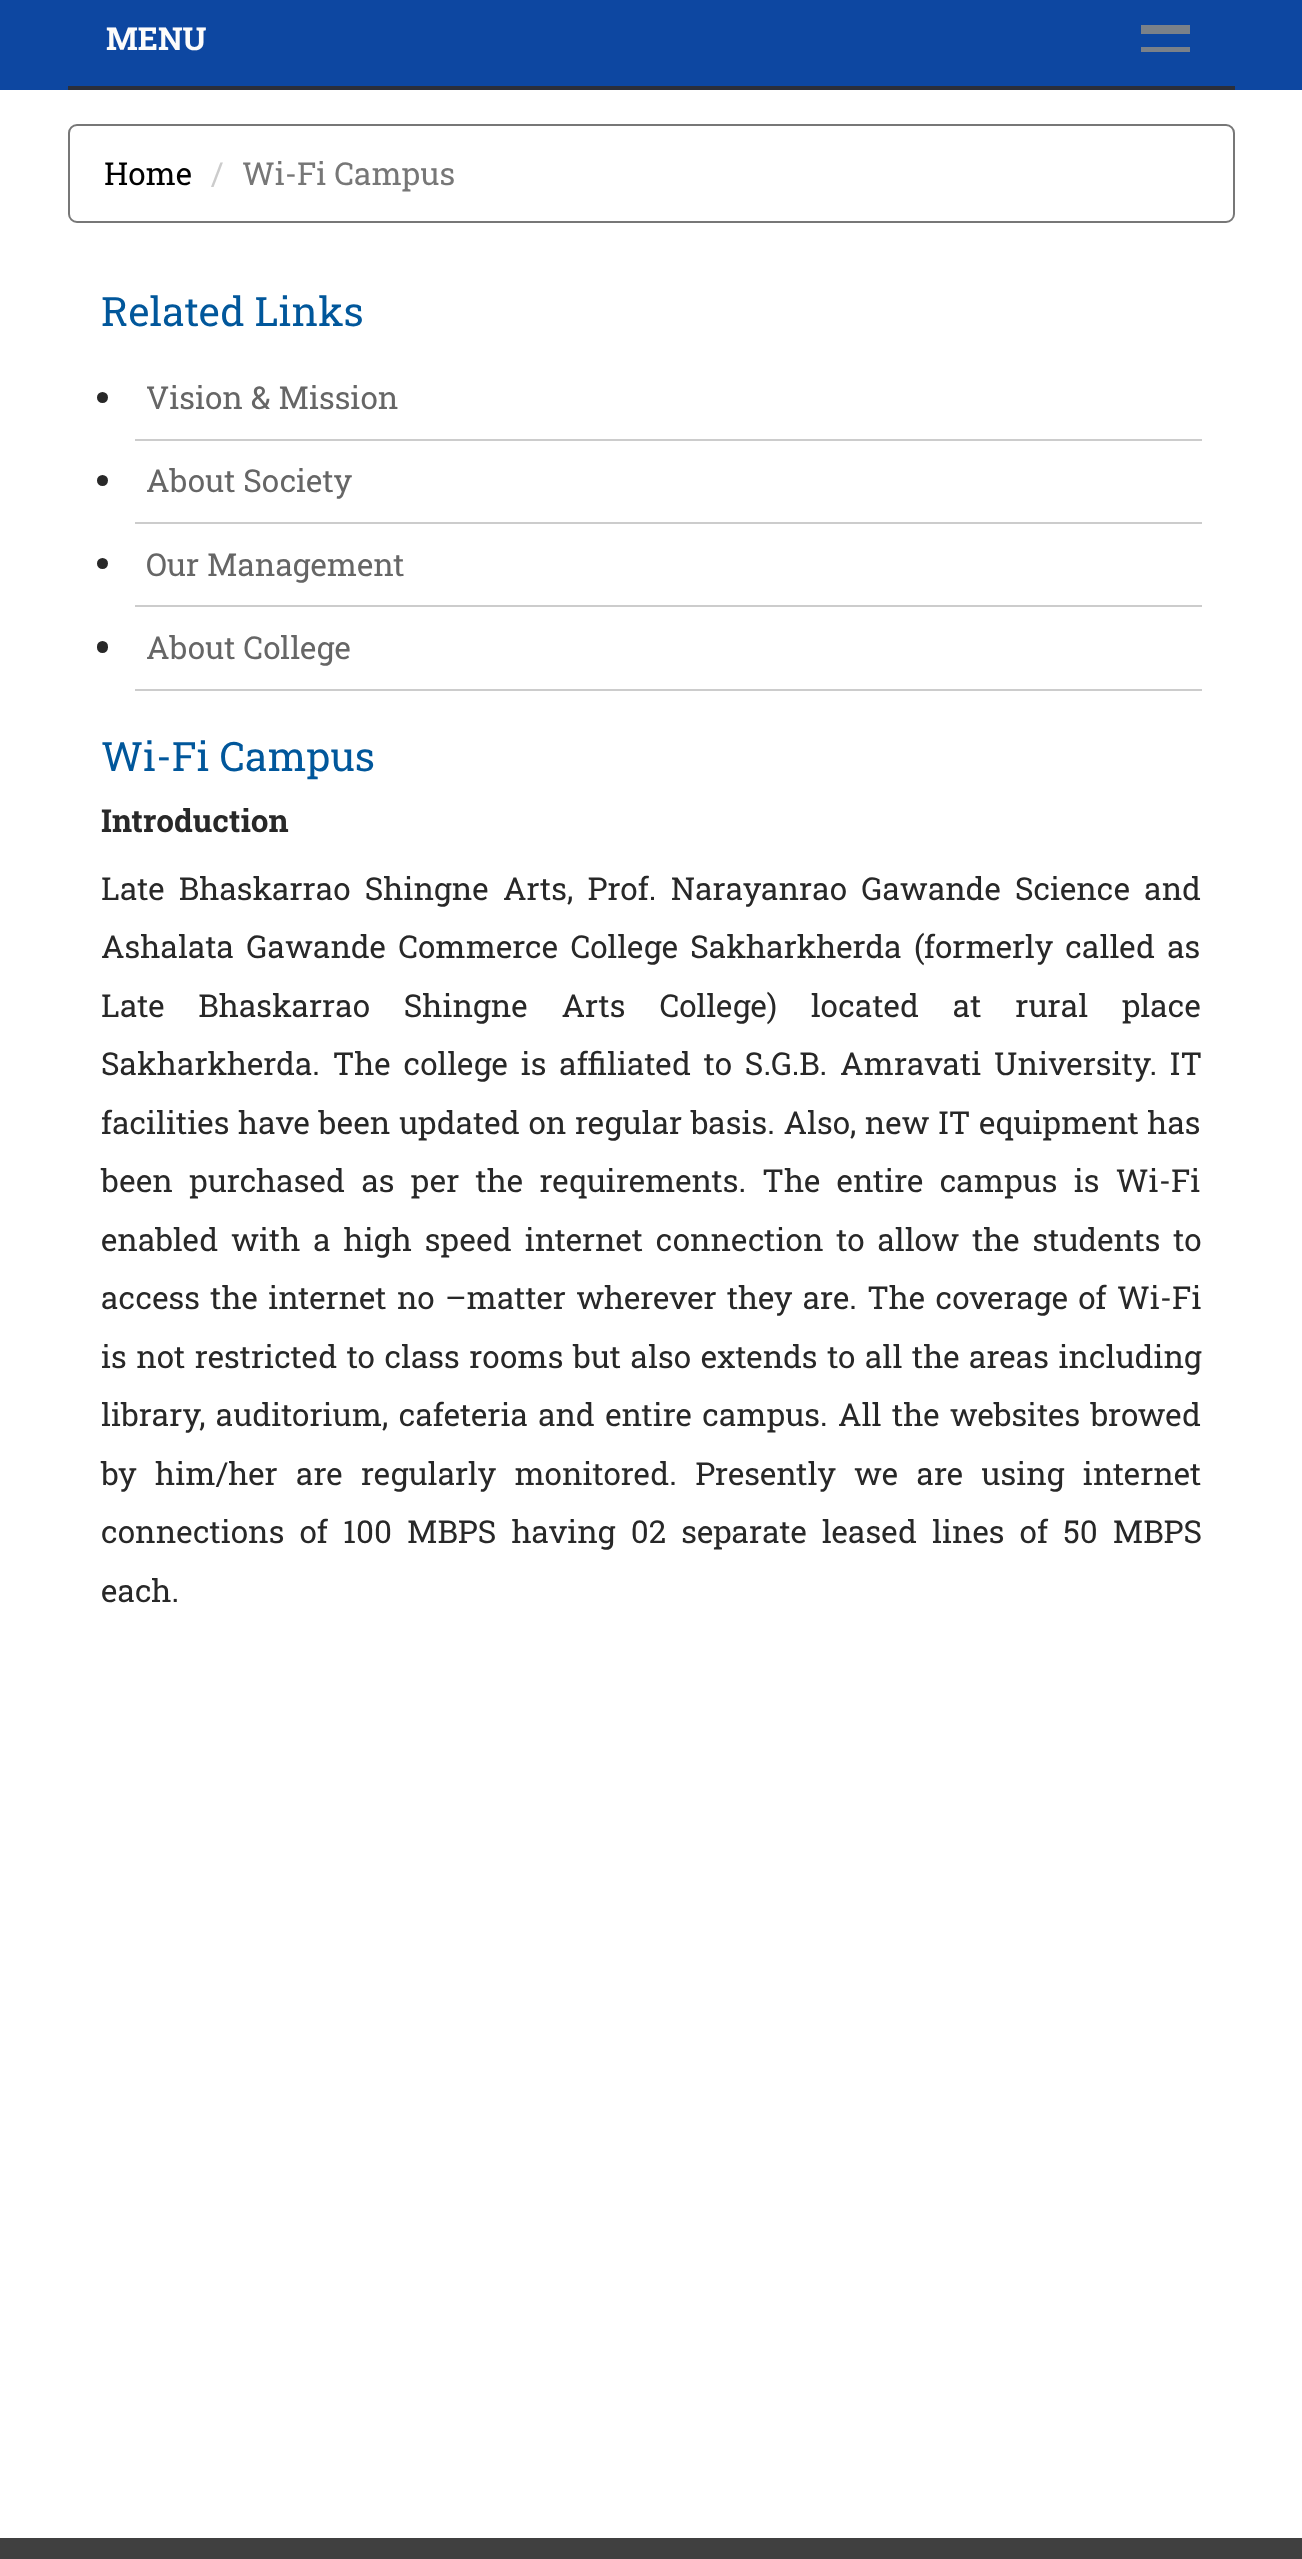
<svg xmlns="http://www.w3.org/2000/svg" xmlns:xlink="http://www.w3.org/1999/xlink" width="1302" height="2559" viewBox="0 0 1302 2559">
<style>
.cls-1{font:bold 31.5px Roboto Slab;fill:#fdfcfb}
.cls-2{font:31.5px Roboto Slab;fill:#000000}
.cls-3{font:31.5px Roboto Slab;fill:#cccccc}
.cls-4{font:31.5px Roboto Slab;fill:#777777}
.cls-5{font:40.5px Roboto Slab;fill:#01579b}
.cls-6{font:31.5px Roboto Slab;fill:#666666}
.cls-7{font:bold 31.5px Roboto Slab;fill:#282828}
.cls-8{font:31.5px Roboto Slab;fill:#282828}
</style>
<rect width="100%" height="100%" fill="#ffffff"/>
<rect fill="#0d47a1" x="0" y="0" width="1302" height="90"/>
<rect fill="#2b2f3a" x="68" y="86" width="1167" height="4"/>
<rect fill="#7a8189" x="1141" y="25" width="49" height="9"/>
<rect fill="#7a8189" x="1141" y="47" width="49" height="5"/>
<rect fill="none" stroke="#777777" stroke-width="2" x="69" y="125" width="1165" height="97" rx="8"/>
<rect fill="#cccccc" x="135" y="439" width="1067" height="2"/>
<circle fill="#282828" cx="102.5" cy="397.5" r="5.5"/>
<rect fill="#cccccc" x="135" y="522" width="1067" height="2"/>
<circle fill="#282828" cx="102.5" cy="480.5" r="5.5"/>
<rect fill="#cccccc" x="135" y="605" width="1067" height="2"/>
<circle fill="#282828" cx="102.5" cy="563.5" r="5.5"/>
<rect fill="#cccccc" x="135" y="689" width="1067" height="2"/>
<rect fill="#282828" x="97" y="641" width="11" height="12" rx="5.5"/>
<rect fill="#404040" x="0" y="2538" width="1302" height="21"/>
<text class="cls-1" x="106" y="50">MENU</text>
<text class="cls-2" x="104" y="185">Home</text>
<text class="cls-3" x="211" y="185">/</text>
<text class="cls-4" x="242" y="185">Wi-Fi Campus</text>
<text class="cls-5" x="101" y="326">Related Links</text>
<text class="cls-6" x="146" y="409">Vision &amp; Mission</text>
<text class="cls-6" x="146" y="492">About Society</text>
<text class="cls-6" x="146" y="576">Our Management</text>
<text class="cls-6" x="146" y="659">About College</text>
<text class="cls-5" x="101" y="771">Wi-Fi Campus</text>
<text class="cls-7" x="101" y="832">Introduction</text>
<text class="cls-8"><tspan x="101" y="900" word-spacing="6.5">Late Bhaskarrao Shingne Arts, Prof. Narayanrao Gawande Science and</tspan><tspan x="101" y="958" word-spacing="4.5">Ashalata Gawande Commerce College Sakharkherda (formerly called as</tspan><tspan x="101" y="1017" word-spacing="26">Late Bhaskarrao Shingne Arts College) located at rural place</tspan><tspan x="101" y="1075" word-spacing="5">Sakharkherda. The college is affiliated to S.G.B. Amravati University. IT</tspan><tspan x="101" y="1134" word-spacing="0.75">facilities have been updated on regular basis. Also, new IT equipment has</tspan><tspan x="101" y="1192" word-spacing="8.5">been purchased as per the requirements. The entire campus is Wi-Fi</tspan><tspan x="101" y="1251" word-spacing="5">enabled with a high speed internet connection to allow the students to</tspan><tspan x="101" y="1309" word-spacing="2.5">access the internet no –matter wherever they are. The coverage of Wi-Fi</tspan><tspan x="101" y="1368" word-spacing="1.75">is not restricted to class rooms but also extends to all the areas including</tspan><tspan x="101" y="1426" word-spacing="2.5">library, auditorium, cafeteria and entire campus. All the websites browed</tspan><tspan x="101" y="1485" word-spacing="10.5">by him/her are regularly monitored. Presently we are using internet</tspan><tspan x="101" y="1543" word-spacing="7.25">connections of 100 MBPS having 02 separate leased lines of 50 MBPS</tspan><tspan x="101" y="1602">each.</tspan></text>
</svg>
